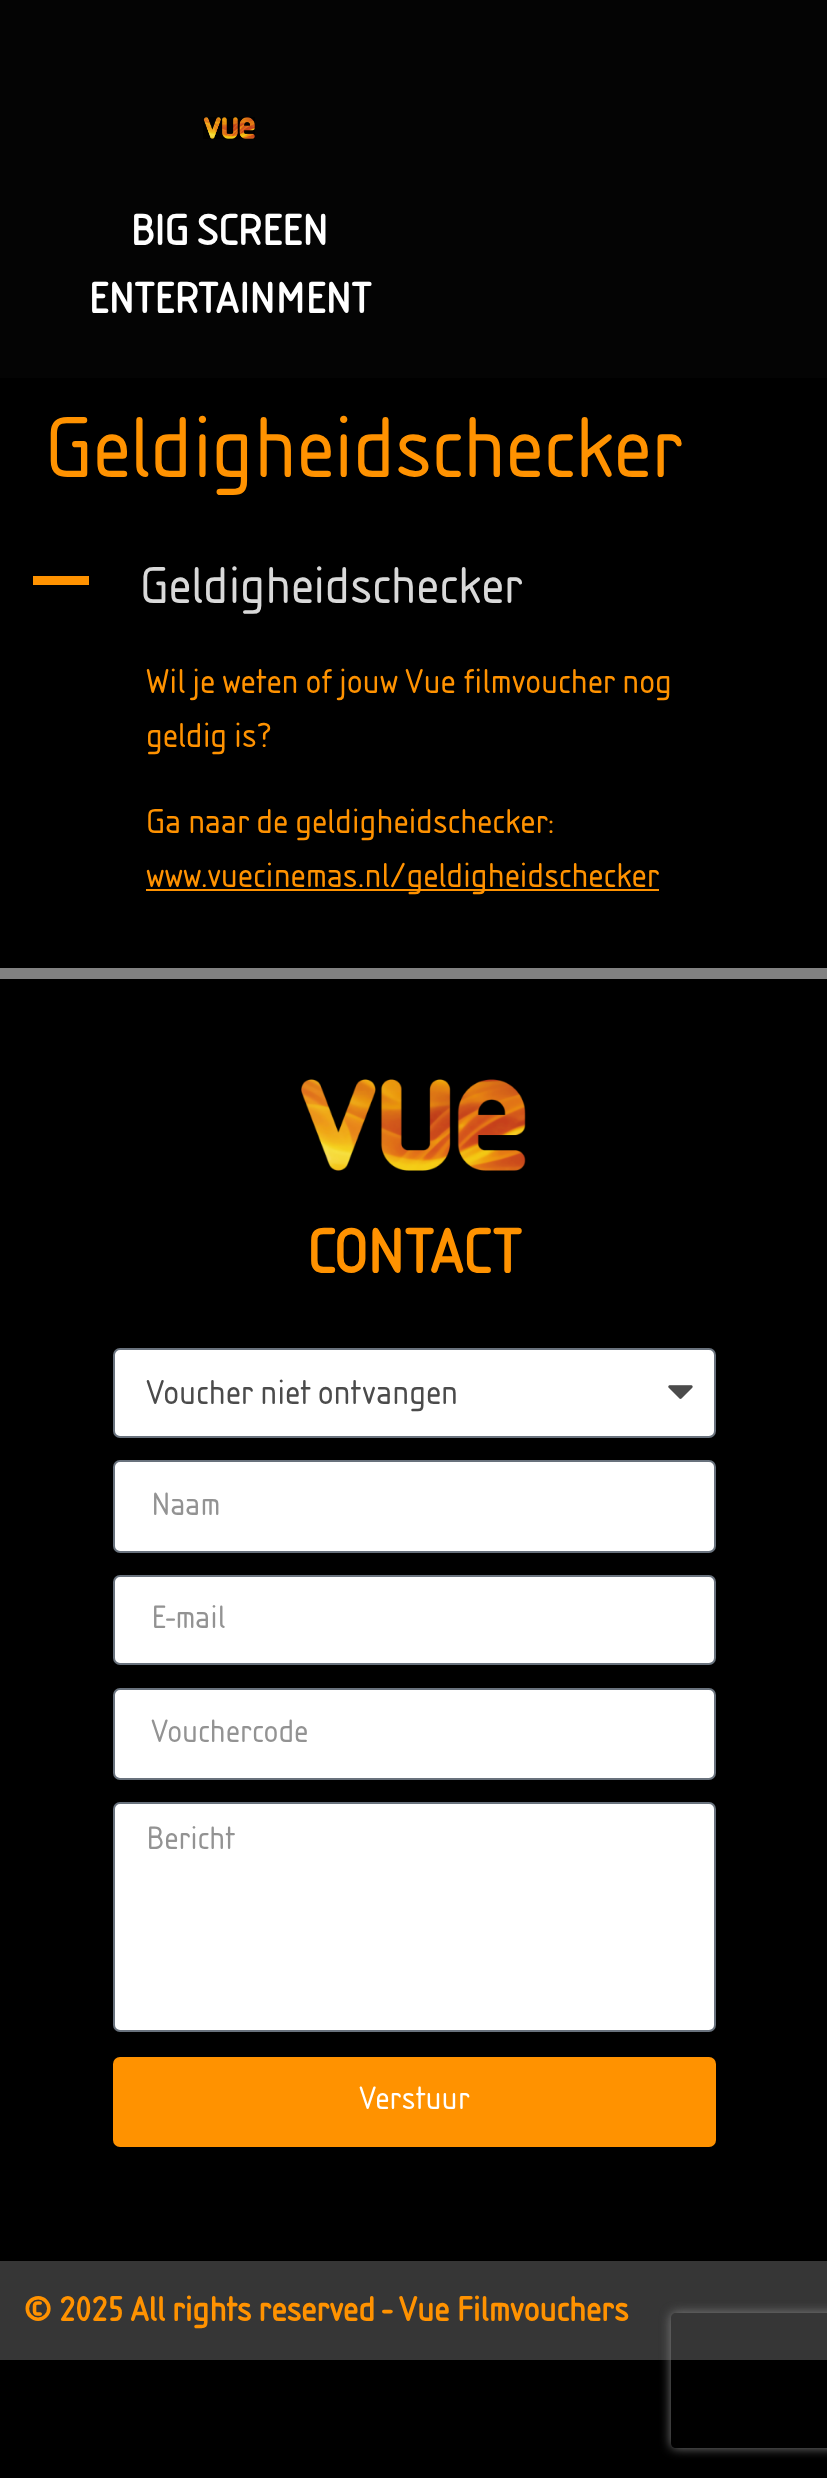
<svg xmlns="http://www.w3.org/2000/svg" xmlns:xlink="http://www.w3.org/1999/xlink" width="827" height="2478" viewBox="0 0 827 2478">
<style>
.cls-1{font:bold 45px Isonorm;fill:#ffffff}
.cls-2{font:90px Isonorm;fill:#ff9200}
.cls-3{font:54px Isonorm;fill:#d9d9d9}
.cls-4{font:36px Isonorm;fill:#ff9200}
.cls-5{font:bold 65px Isonorm;fill:#ff9200}
.cls-6{font:36px Isonorm;fill:#4b4b4b}
.cls-7{font:33.75px Isonorm;fill:#939393}
.cls-8{font:33.75px Isonorm;fill:#ffffff}
.cls-9{font:bold 36px Isonorm;fill:#ff9200}
</style>
<defs>
<clipPath id="clip1"><path d="M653 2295H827V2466H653ZM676 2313H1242C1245 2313 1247 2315 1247 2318V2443C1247 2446 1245 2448 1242 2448H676C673 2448 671 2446 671 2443V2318C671 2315 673 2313 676 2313Z" clip-rule="evenodd"/></clipPath>
</defs>
<rect width="100%" height="100%" fill="#000000"/>
<rect fill="#040404" x="0" y="0" width="827" height="378"/>
<image xlink:href="image0.png" x="203" y="117" width="52" height="22"/>
<rect fill="#ff9200" x="33" y="576" width="56" height="9"/>
<rect fill="#ff9200" x="146" y="889" width="513" height="2"/>
<rect fill="#818181" x="0" y="968" width="827" height="11"/>
<image xlink:href="image1.png" x="301" y="1079" width="225" height="92"/>
<rect fill="#ffffff" stroke="#69727d" stroke-width="2" x="114" y="1349" width="601" height="88" rx="6"/>
<image xlink:href="image2.png" x="668" y="1385" width="25" height="14"/>
<rect fill="#ffffff" stroke="#69727d" stroke-width="2" x="114" y="1461" width="601" height="91" rx="6"/>
<rect fill="#ffffff" stroke="#69727d" stroke-width="2" x="114" y="1576" width="601" height="88" rx="6"/>
<rect fill="#ffffff" stroke="#69727d" stroke-width="2" x="114" y="1689" width="601" height="90" rx="6"/>
<rect fill="#ffffff" stroke="#69727d" stroke-width="2" x="114" y="1803" width="601" height="228" rx="6"/>
<rect fill="#ff9200" x="113" y="2057" width="603" height="90" rx="7"/>
<rect fill="#363636" x="0" y="2261" width="827" height="99"/>
<g clip-path="url(#clip1)">
<rect fill="#808080" filter="blur(5.5px)" x="671" y="2313" width="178" height="135" rx="5"/>
</g>
<text class="cls-1" x="130" y="245">BIG SCREEN</text>
<text class="cls-1" x="88" y="313">ENTERTAINMENT</text>
<text class="cls-2" x="45" y="477">Geldigheidschecker</text>
<text class="cls-3" x="140" y="603">Geldigheidschecker</text>
<text class="cls-4"><tspan x="146" y="693">Wil je weten of jouw Vue filmvoucher nog</tspan><tspan x="146" y="747">geldig is?</tspan></text>
<text class="cls-4"><tspan x="146" y="833">Ga naar de geldigheidschecker:</tspan><tspan x="146" y="887">www.vuecinemas.nl/geldigheidschecker</tspan></text>
<text class="cls-5" x="307" y="1273">CONTACT</text>
<text class="cls-6" x="146" y="1404">Voucher niet ontvangen</text>
<text class="cls-7" x="151" y="1515">Naam</text>
<text class="cls-7" x="151" y="1628">E-mail</text>
<text class="cls-7" x="151" y="1742">Vouchercode</text>
<text class="cls-7" x="146" y="1849">Bericht</text>
<text class="cls-8" x="359" y="2109">Verstuur</text>
<text class="cls-9" x="23" y="2321">© 2025 All rights reserved - Vue Filmvouchers</text>
</svg>
